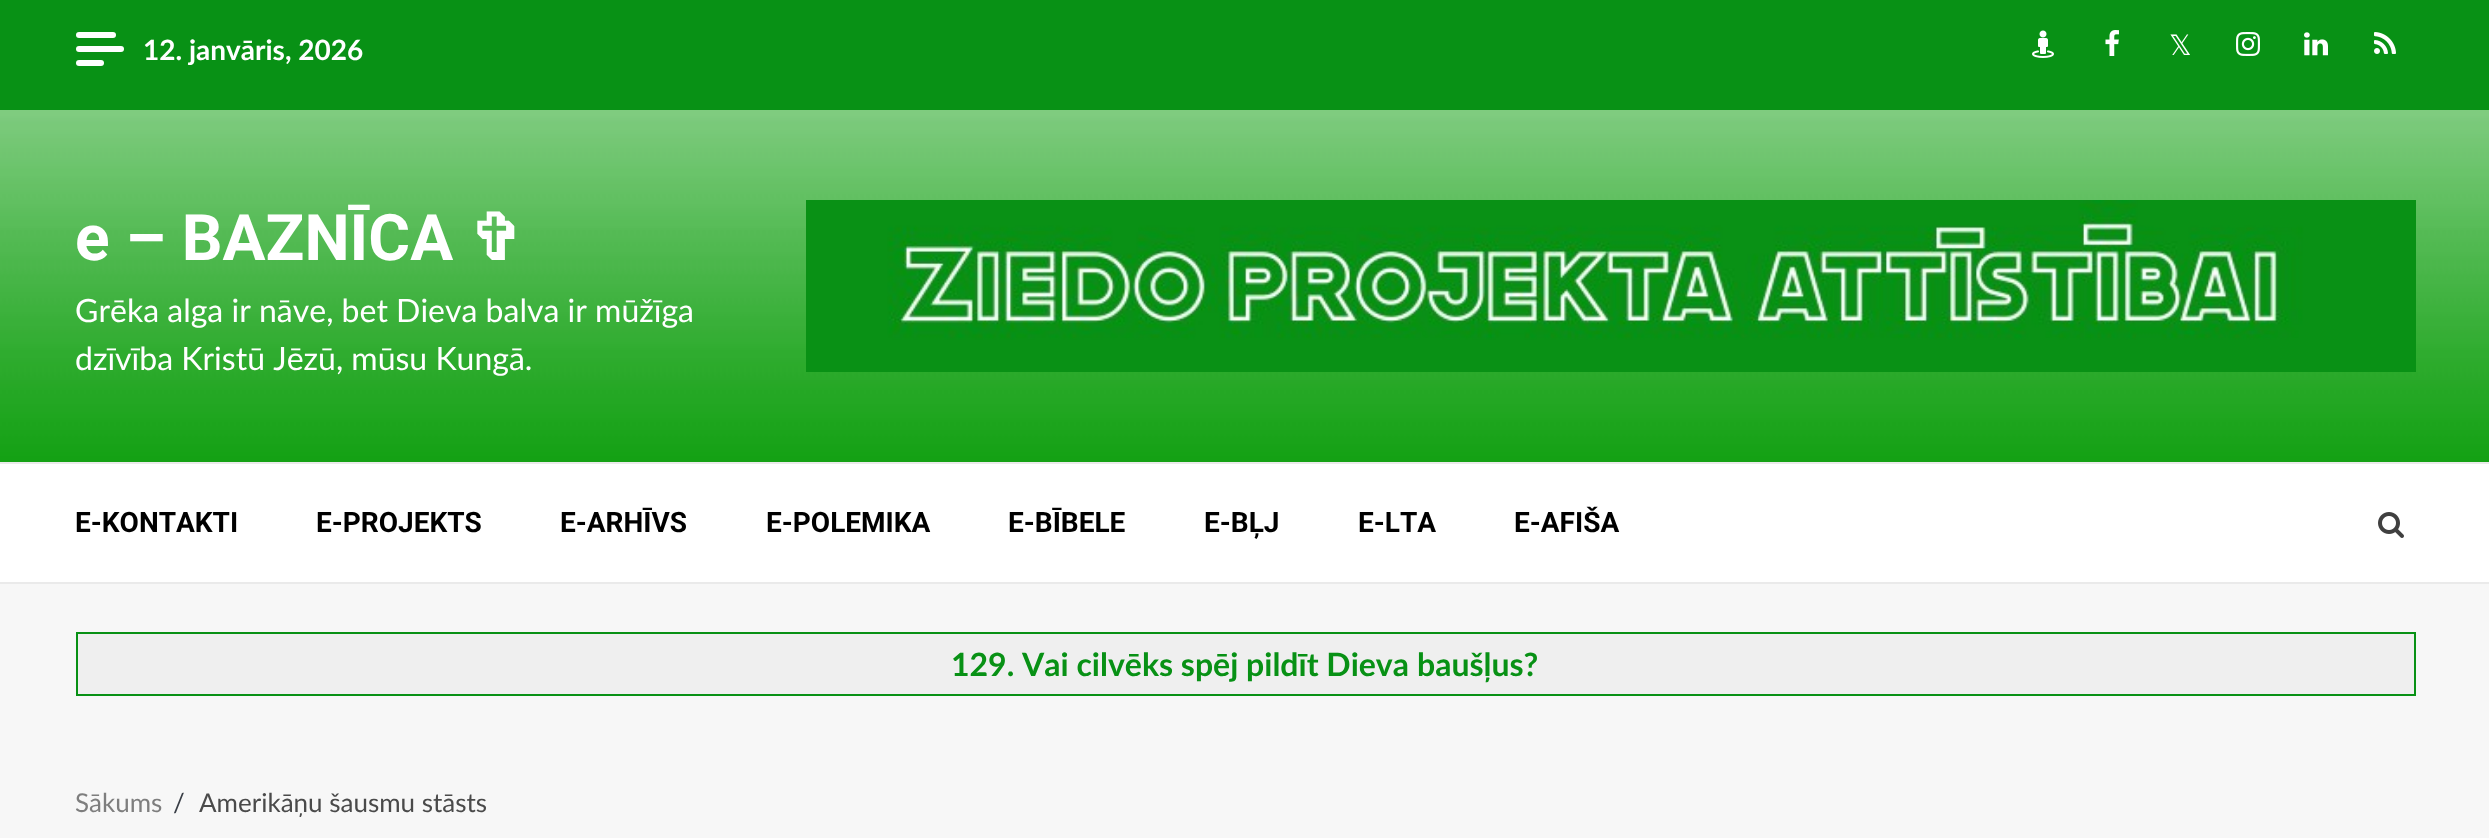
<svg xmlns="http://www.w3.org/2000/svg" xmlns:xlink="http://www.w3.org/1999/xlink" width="2489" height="838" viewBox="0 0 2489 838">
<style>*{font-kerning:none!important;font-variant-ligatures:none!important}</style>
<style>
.cls-1{font:bold 28px Lato;fill:#ffffff}
.cls-2{font:28px DejaVu Sans;fill:#ffffff}
.cls-3{font:bold 64px Roboto;fill:#ffffff}
.cls-4{font:bold 64px DejaVu Sans;fill:#ffffff}
.cls-5{font:32px Lato;fill:#ffffff}
.cls-6{font:bold 28px Roboto;fill:#000000}
.cls-7{font:bold 32px Lato;fill:#089115}
.cls-8{font:26px Lato;fill:#7e7e7e}
.cls-9{font:26px Lato;fill:#393e46}
.cls-10{font:26px Lato;fill:#4a4a4a}
</style>
<rect width="100%" height="100%" fill="#f7f7f7"/>
<rect fill="#ffffff" x="0" y="464" width="2489" height="118"/>
<rect fill="#089115" x="0" y="0" width="2489" height="110"/>
<rect fill="#ffffff" x="76" y="32" width="40" height="6" rx="3"/>
<rect fill="#ffffff" x="76" y="46" width="48" height="6" rx="3"/>
<rect fill="#ffffff" x="76" y="60" width="28" height="6" rx="3"/>
<image xlink:href="image0.png" x="2032" y="30" width="22" height="28"/>
<image xlink:href="image1.png" x="2105" y="30" width="14" height="26"/>
<image xlink:href="image2.png" x="2236" y="32" width="24" height="24"/>
<image xlink:href="image3.png" x="2304" y="32" width="24" height="24"/>
<image xlink:href="image4.png" x="2374" y="32" width="22" height="22"/>
<image xlink:href="image5.png" x="0" y="110" width="2489" height="352"/>
<image xlink:href="image6.png" x="806" y="200" width="1610" height="172"/>
<rect fill="#eaeaea" x="0" y="462" width="2489" height="2"/>
<rect fill="#eaeaea" x="0" y="582" width="2489" height="2"/>
<image xlink:href="image7.png" x="2378" y="512" width="26" height="26"/>
<rect fill="#efefef" stroke="#089115" stroke-width="2" x="77" y="633" width="2338" height="62"/>
<text class="cls-1" x="143" y="60">12. janvāris, 2026</text>
<text class="cls-2" x="2169" y="55">𝕏</text>
<text class="cls-3" x="75" y="260">e – BAZNĪCA</text>
<text class="cls-4" x="469" y="260">✞</text>
<text class="cls-5"><tspan x="75" y="322">Grēka alga ir nāve, bet Dieva balva ir mūžīga</tspan><tspan x="75" y="370">dzīvība Kristū Jēzū, mūsu Kungā.</tspan></text>
<text class="cls-6" x="75" y="532">E-KONTAKTI</text>
<text class="cls-6" x="316" y="532">E-PROJEKTS</text>
<text class="cls-6" x="560" y="532">E-ARHĪVS</text>
<text class="cls-6" x="766" y="532">E-POLEMIKA</text>
<text class="cls-6" x="1008" y="532">E-BĪBELE</text>
<text class="cls-6" x="1204" y="532">E-BĻJ</text>
<text class="cls-6" x="1358" y="532">E-LTA</text>
<text class="cls-6" x="1514" y="532">E-AFIŠA</text>
<text class="cls-7" x="951" y="676">129. Vai cilvēks spēj pildīt Dieva</text>
<text class="cls-7" x="1417" y="676">baušļus?</text>
<text class="cls-8" x="75" y="812">Sākums</text>
<text class="cls-9" x="173" y="812">/</text>
<text class="cls-10" x="199" y="812">Amerikāņu šausmu stāsts</text>
</svg>
